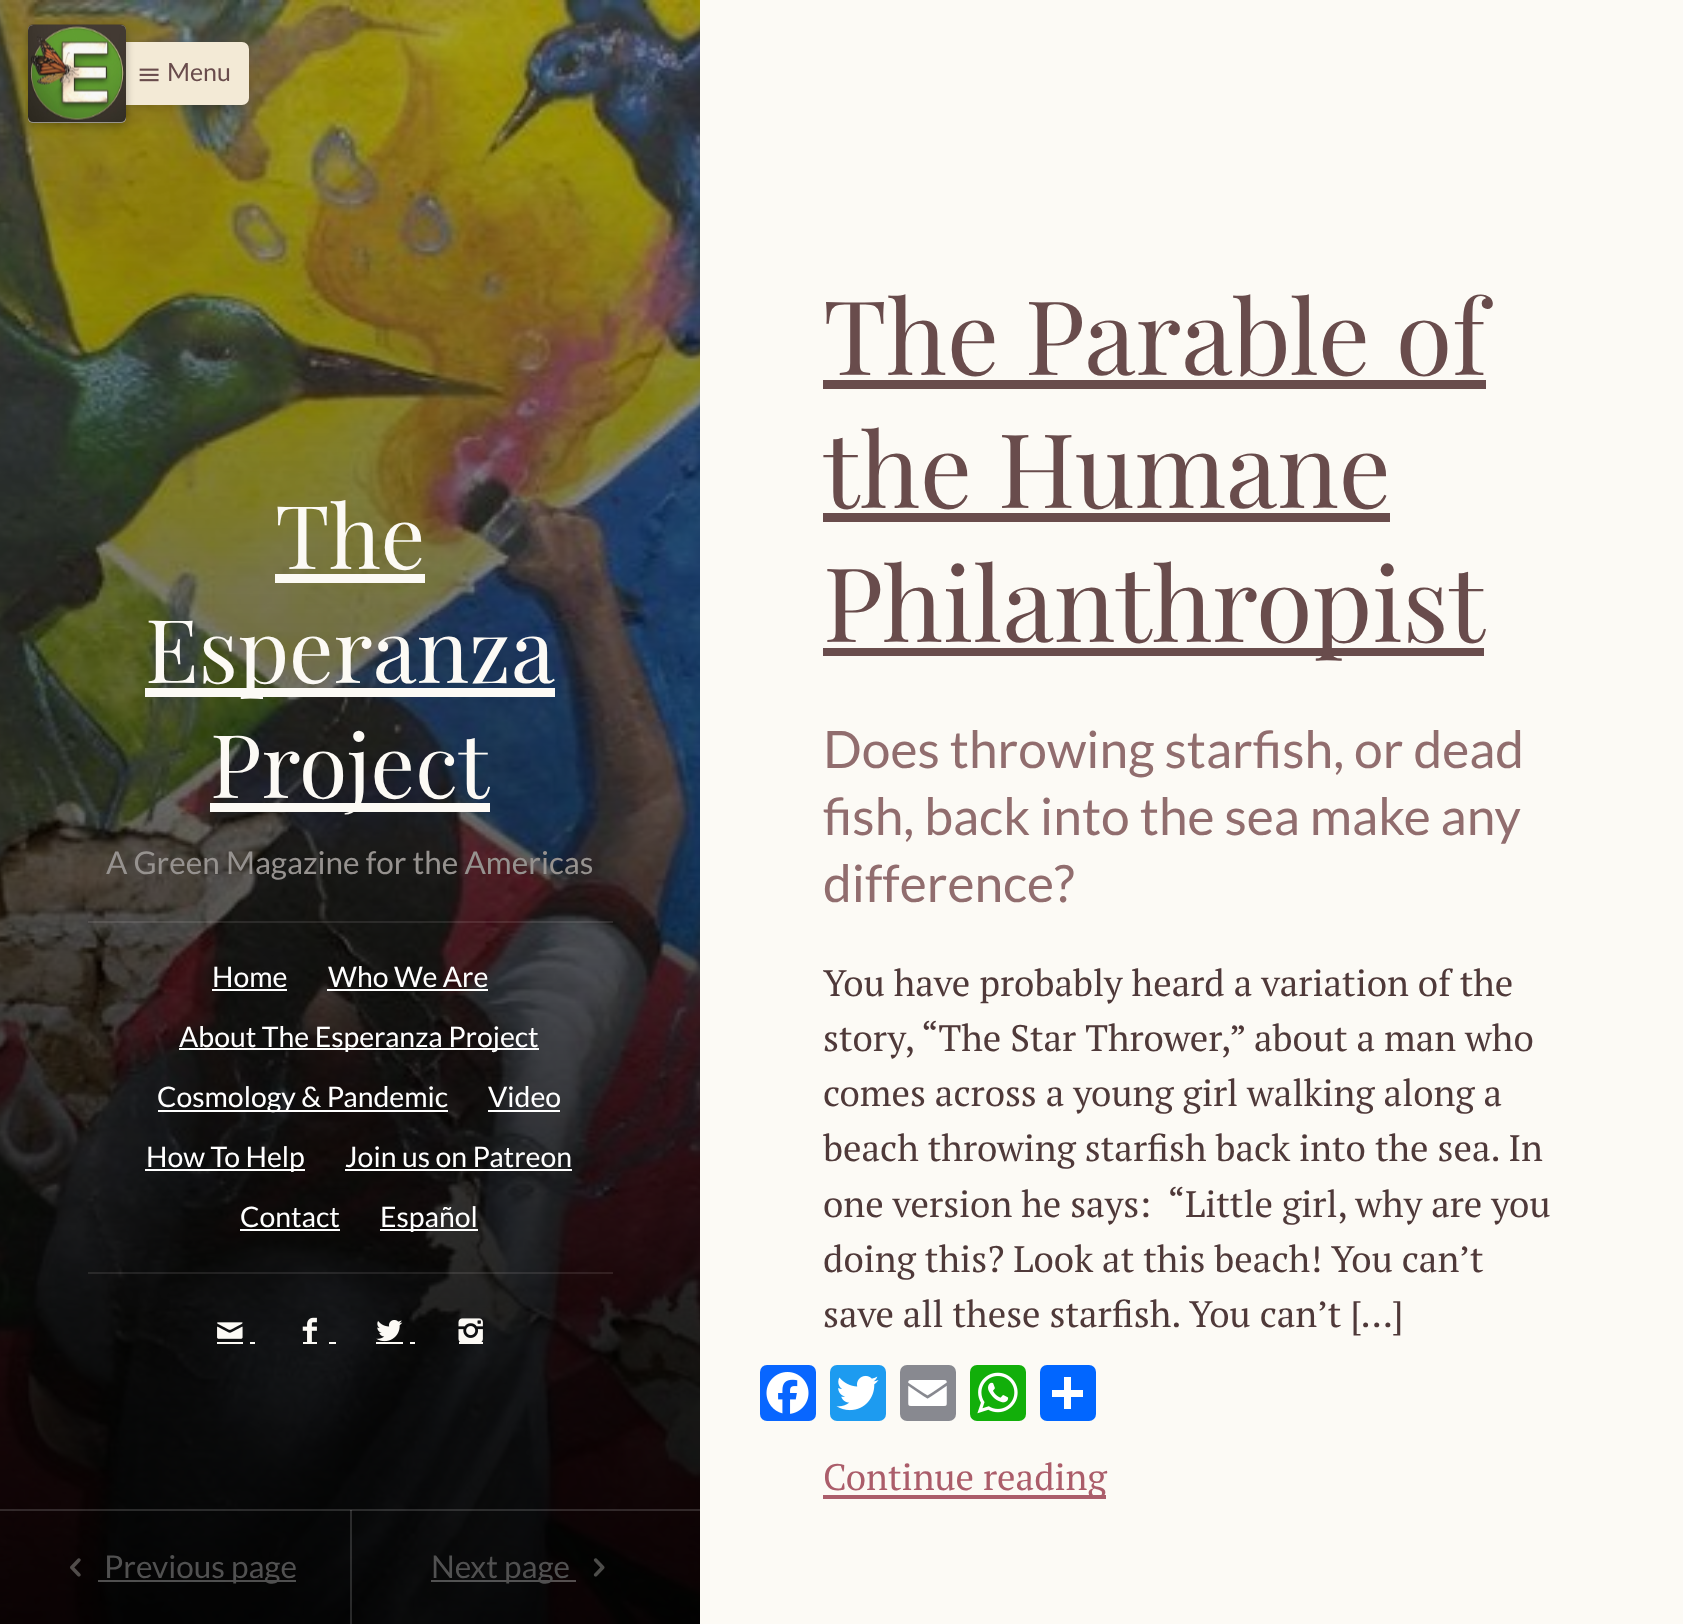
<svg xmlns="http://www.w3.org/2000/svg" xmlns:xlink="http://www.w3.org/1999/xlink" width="1683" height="1624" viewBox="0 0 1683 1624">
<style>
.cls-1{font:25px Lato;fill:#694c4c}
.cls-2{font:88px Playfair Display;fill:#fcfaf5}
.cls-3{font:31.5px Lato;fill:#96928f}
.cls-4{font:28.4px Lato;fill:#ffffff}
.cls-5{font:31.5px Lato;fill:#515151}
.cls-6{font:103px Playfair Display;fill:#694c4c}
.cls-7{font:51.5px Lato;fill:#916d6e}
.cls-8{font:36.75px PT Serif;fill:#4f3939}
.cls-9{font:36.75px PT Serif;fill:#ab5d6a}
</style>
<rect width="100%" height="100%" fill="#fcfaf5"/>
<image xlink:href="image2.png" x="0" y="0" width="700" height="1624"/>
<rect fill="#000000" fill-opacity="0.1" filter="blur(3.5px)" x="102" y="46" width="147" height="63" rx="7"/>
<rect fill="#f3ead6" x="102" y="42" width="147" height="63" rx="7"/>
<image xlink:href="image1.png" x="139" y="68" width="20" height="14"/>
<rect fill="#000000" fill-opacity="0.26" filter="blur(4.5px)" x="28" y="28" width="98" height="98" rx="5"/>
<rect fill="#fcfaf5" x="28" y="25" width="98" height="98" rx="5"/>
<image xlink:href="image0.png" x="28" y="24" width="98" height="99"/>
<rect fill="#fcfaf5" x="275" y="574" width="150" height="9"/>
<rect fill="#fcfaf5" x="145" y="688" width="410" height="9"/>
<rect fill="#fcfaf5" x="210" y="803" width="280" height="9"/>
<rect fill="#fcfaf5" fill-opacity="0.1" x="88" y="921" width="525" height="2"/>
<rect fill="#ffffff" x="212" y="989" width="75" height="2"/>
<rect fill="#ffffff" x="327" y="989" width="161" height="2"/>
<rect fill="#ffffff" x="179" y="1048" width="360" height="2"/>
<rect fill="#ffffff" x="158" y="1110" width="290" height="2"/>
<rect fill="#ffffff" x="488" y="1110" width="72" height="2"/>
<rect fill="#ffffff" x="145" y="1169" width="160" height="2"/>
<rect fill="#ffffff" x="345" y="1169" width="227" height="2"/>
<rect fill="#ffffff" x="240" y="1229" width="100" height="2"/>
<rect fill="#ffffff" x="380" y="1229" width="98" height="2"/>
<rect fill="#fcfaf5" fill-opacity="0.1" x="88" y="1272" width="525" height="2"/>
<rect fill="#fcfaf5" x="217" y="1342" width="26" height="2"/>
<image xlink:href="image3.png" x="217" y="1322" width="26" height="17"/>
<rect fill="#fcfaf5" x="250" y="1342" width="5" height="2"/>
<rect fill="#fcfaf5" x="303" y="1342" width="14" height="2"/>
<image xlink:href="image4.png" x="302" y="1317" width="15" height="25"/>
<rect fill="#fcfaf5" x="329" y="1342" width="7" height="2"/>
<rect fill="#fcfaf5" x="376" y="1342" width="27" height="2"/>
<image xlink:href="image5.png" x="376" y="1320" width="27" height="22"/>
<rect fill="#fcfaf5" x="410" y="1342" width="5" height="2"/>
<rect fill="#fcfaf5" x="459" y="1342" width="24" height="2"/>
<image xlink:href="image6.png" x="458" y="1318" width="25" height="24"/>
<rect fill="#ffffff" fill-opacity="0.15" x="0" y="1509" width="700" height="2"/>
<image xlink:href="image7.png" x="70" y="1558" width="11" height="19"/>
<rect fill="#ffffff" fill-opacity="0.3" x="98" y="1580" width="198" height="2"/>
<rect fill="#ffffff" fill-opacity="0.15" x="350" y="1510" width="2" height="114"/>
<rect fill="#ffffff" fill-opacity="0.3" x="431" y="1580" width="145" height="2"/>
<image xlink:href="image8.png" x="593" y="1558" width="12" height="19"/>
<rect fill="#694c4c" x="823" y="380" width="663" height="9"/>
<rect fill="#694c4c" x="823" y="513" width="567" height="9"/>
<rect fill="#694c4c" x="823" y="648" width="661" height="8"/>
<rect fill="#0866ff" x="760" y="1365" width="56" height="56" rx="7"/>
<image xlink:href="image9.png" x="766" y="1372" width="43" height="42"/>
<rect fill="#1d9bf0" x="830" y="1365" width="56" height="56" rx="7"/>
<image xlink:href="image10.png" x="836" y="1375" width="43" height="36"/>
<rect fill="#888990" x="900" y="1365" width="56" height="56" rx="7"/>
<image xlink:href="image11.png" x="908" y="1380" width="39" height="26"/>
<rect fill="#12af0a" x="970" y="1365" width="56" height="56" rx="7"/>
<image xlink:href="image12.png" x="977" y="1372" width="41" height="42"/>
<rect fill="#0166ff" x="1040" y="1365" width="56" height="56" rx="7"/>
<rect fill="#ffffff" x="1064" y="1377" width="7" height="32"/>
<rect fill="#ffffff" x="1052" y="1390" width="31" height="7"/>
<rect fill="#ab5d6a" x="823" y="1495" width="283" height="4"/>
<text class="cls-1" x="167" y="81">Menu</text>
<text class="cls-2" x="275" y="569">The</text>
<text class="cls-2" x="145" y="683">Esperanza</text>
<text class="cls-2" x="210" y="798">Project</text>
<text class="cls-3" x="106" y="874">A Green Magazine for the Americas</text>
<text class="cls-4" x="212" y="987">Home</text>
<text class="cls-4" x="328" y="987">Who We Are</text>
<text class="cls-4" x="179" y="1047">About The Esperanza Project</text>
<text class="cls-4" x="157" y="1107">Cosmology &amp; Pandemic</text>
<text class="cls-4" x="488" y="1107">Video</text>
<text class="cls-4" x="146" y="1167">How To Help</text>
<text class="cls-4" x="345" y="1167">Join us on Patreon</text>
<text class="cls-4" x="240" y="1227">Contact</text>
<text class="cls-4" x="380" y="1227">Español</text>
<text class="cls-5" x="104" y="1578">Previous page</text>
<text class="cls-5" x="431" y="1578">Next page</text>
<text class="cls-6"><tspan x="823" y="375">The Parable of</tspan><tspan x="823" y="508">the Humane</tspan><tspan x="823" y="642">Philanthropist</tspan></text>
<text class="cls-7"><tspan x="823" y="768">Does throwing starfish, or dead</tspan><tspan x="823" y="835">fish, back into the sea make any</tspan><tspan x="823" y="902">difference?</tspan></text>
<text class="cls-8" xml:space="preserve"><tspan x="823" y="996">You have probably heard a variation of the</tspan><tspan x="823" y="1051">story, “The Star Thrower,” about a man who</tspan><tspan x="823" y="1106">comes across a young girl walking along a</tspan><tspan x="823" y="1161">beach throwing starfish back into the sea. In</tspan><tspan x="823" y="1217">one version he says:  “Little girl, why are you</tspan><tspan x="823" y="1272">doing this? Look at this beach! You can’t</tspan><tspan x="823" y="1327">save all these starfish. You can’t […]</tspan></text>
<text class="cls-9" x="823" y="1490">Continue reading</text>
</svg>
